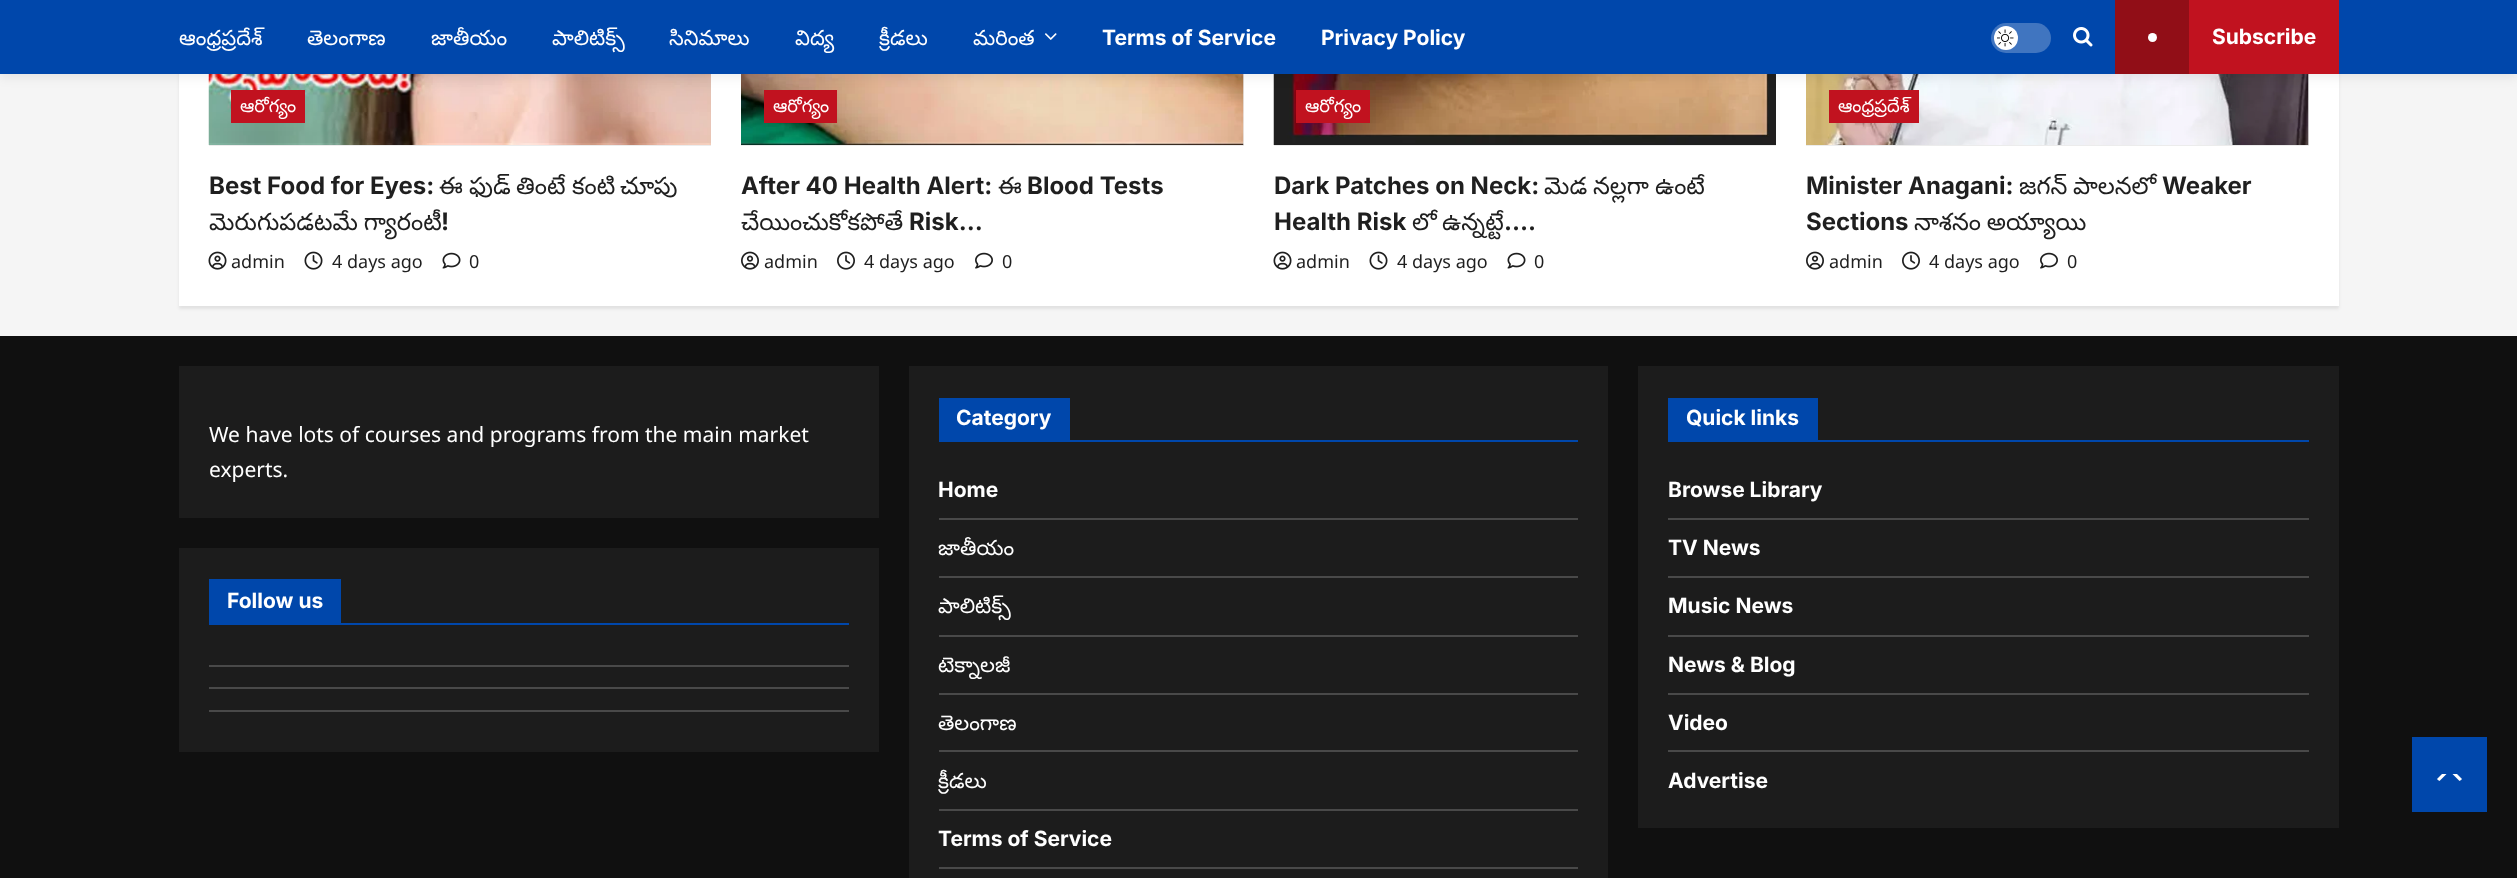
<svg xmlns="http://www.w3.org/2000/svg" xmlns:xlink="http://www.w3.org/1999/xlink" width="2517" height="878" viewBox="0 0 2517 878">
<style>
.cls-1{font:21px Noto Sans Telugu;fill:#ffffff}
.cls-2{font:bold 21px Inter;fill:#ffffff}
.cls-3{font:18px Noto Sans Telugu;fill:#ffffff}
.cls-4{font:bold 24px Inter;fill:#1f1f1f}
.cls-5{font:24px Noto Sans Telugu;fill:#1f1f1f}
.cls-6{font:18px Noto Sans;fill:#1f1f1f}
.cls-7{font:21px Noto Sans;fill:#ffffff}
</style>
<rect width="100%" height="100%" fill="#f5f5f5"/>
<rect fill="#000000" fill-opacity="0.08" filter="blur(1.5px)" x="179" y="-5" width="2160" height="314"/>
<rect fill="#ffffff" x="179" y="74" width="2160" height="232"/>
<image xlink:href="image3.png" x="208" y="74" width="503" height="71"/>
<rect fill="#c1121f" x="231" y="90" width="74" height="33"/>
<rect fill="#ececec" x="741" y="74" width="503" height="72"/>
<image xlink:href="image7.png" x="741" y="74" width="503" height="71"/>
<rect fill="#c1121f" x="764" y="90" width="73" height="33"/>
<image xlink:href="image11.png" x="1273" y="74" width="503" height="71"/>
<rect fill="#c1121f" x="1296" y="90" width="74" height="33"/>
<rect fill="#ececec" x="1806" y="74" width="503" height="72"/>
<image xlink:href="image12.png" x="1806" y="74" width="503" height="71"/>
<rect fill="#c1121f" x="1829" y="90" width="90" height="33"/>
<rect fill="#000000" fill-opacity="0.08" filter="blur(6px)" x="0" y="3" width="2517" height="74"/>
<rect fill="#0047ab" x="0" y="0" width="2517" height="74"/>
<image xlink:href="image0.png" x="1044" y="33" width="13" height="7"/>
<rect fill="#4075c0" x="1991" y="23" width="60" height="30" rx="15"/>
<circle fill="#ffffff" cx="2006" cy="38" r="12"/>
<image xlink:href="image1.png" x="1997" y="29" width="17" height="18"/>
<image xlink:href="image2.png" x="2073" y="27" width="20" height="20"/>
<rect fill="#c1121f" x="2189" y="0" width="150" height="74"/>
<rect fill="#910e17" x="2115" y="0" width="74" height="74"/>
<circle fill="#ffffff" cx="2152.5" cy="37.5" r="4.5"/>
<rect fill="#ececec" x="209" y="145" width="502" height="1"/>
<image xlink:href="image4.png" x="208" y="251" width="19" height="19"/>
<image xlink:href="image5.png" x="304" y="251" width="19" height="19"/>
<image xlink:href="image6.png" x="442" y="252" width="19" height="17"/>
<image xlink:href="image8.png" x="741" y="251" width="18" height="19"/>
<image xlink:href="image9.png" x="837" y="251" width="18" height="19"/>
<image xlink:href="image10.png" x="975" y="252" width="18" height="17"/>
<rect fill="#ececec" x="1274" y="145" width="502" height="1"/>
<image xlink:href="image4.png" x="1273" y="251" width="19" height="19"/>
<image xlink:href="image5.png" x="1369" y="251" width="19" height="19"/>
<image xlink:href="image6.png" x="1507" y="252" width="19" height="17"/>
<image xlink:href="image8.png" x="1806" y="251" width="18" height="19"/>
<image xlink:href="image9.png" x="1902" y="251" width="18" height="19"/>
<image xlink:href="image10.png" x="2040" y="252" width="18" height="17"/>
<rect fill="#101010" x="0" y="336" width="2517" height="542"/>
<rect fill="#1c1c1c" x="179" y="366" width="700" height="152"/>
<rect fill="#1c1c1c" x="179" y="548" width="700" height="204"/>
<rect fill="#0047ab" x="209" y="623" width="640" height="2"/>
<rect fill="#0047ab" x="209" y="579" width="132" height="44"/>
<rect fill="#494949" x="209" y="665" width="640" height="2"/>
<rect fill="#494949" x="209" y="687" width="640" height="2"/>
<rect fill="#494949" x="209" y="710" width="640" height="2"/>
<rect fill="#1c1c1c" x="909" y="366" width="699" height="512"/>
<rect fill="#0047ab" x="939" y="440" width="639" height="2"/>
<rect fill="#0047ab" x="939" y="398" width="131" height="42"/>
<rect fill="#494949" x="939" y="518" width="639" height="2"/>
<rect fill="#494949" x="939" y="576" width="639" height="2"/>
<rect fill="#494949" x="939" y="635" width="639" height="2"/>
<rect fill="#494949" x="939" y="693" width="639" height="2"/>
<rect fill="#494949" x="939" y="750" width="639" height="2"/>
<rect fill="#494949" x="939" y="809" width="639" height="2"/>
<rect fill="#494949" x="939" y="867" width="639" height="2"/>
<rect fill="#1c1c1c" x="1638" y="366" width="701" height="462"/>
<rect fill="#0047ab" x="1668" y="440" width="641" height="2"/>
<rect fill="#0047ab" x="1668" y="398" width="150" height="42"/>
<rect fill="#494949" x="1668" y="518" width="641" height="2"/>
<rect fill="#494949" x="1668" y="576" width="641" height="2"/>
<rect fill="#494949" x="1668" y="635" width="641" height="2"/>
<rect fill="#494949" x="1668" y="693" width="641" height="2"/>
<rect fill="#494949" x="1668" y="750" width="641" height="2"/>
<rect fill="#0047ab" x="2412" y="737" width="75" height="75"/>
<path fill="#ffffff" d="M2442 781.5H2457C2459 781.5 2461 780.5 2462 779L2457 774H2442L2437 779C2438 780.5 2440 781.5 2442 781.5Z"/>
<path fill="#0047ab" d="M2464.5 786H2434.5L2449.5 771Z"/>
<text class="cls-1" x="179" y="45">ఆంధ్రప్రదేశ్</text>
<text class="cls-1" x="307" y="45">తెలంగాణ</text>
<text class="cls-1" x="431" y="45">జాతీయం</text>
<text class="cls-1" x="552" y="45">పాలిటిక్స్</text>
<text class="cls-1" x="669" y="45">సినిమాలు</text>
<text class="cls-1" x="795" y="45">విద్య</text>
<text class="cls-1" x="879" y="45">క్రీడలు</text>
<text class="cls-1" x="973" y="45">మరింత</text>
<text class="cls-2" x="1102" y="45">Terms of Service</text>
<text class="cls-2" x="1321" y="45">Privacy Policy</text>
<text class="cls-2" x="2212" y="44">Subscribe</text>
<text class="cls-3" x="240" y="112">ఆరోగ్యం</text>
<text class="cls-4" x="209" y="194">Best Food for Eyes:</text>
<text class="cls-5" x="439" y="194">ఈ</text>
<text class="cls-5" x="469" y="194">ఫుడ్</text>
<text class="cls-5" x="516" y="194">తింటే</text>
<text class="cls-5" x="572" y="194">కంటి</text>
<text class="cls-5" x="620" y="194">చూపు</text>
<text class="cls-5" x="209" y="230" word-spacing="-1">మెరుగుపడటమే గ్యారంటీ</text>
<text class="cls-4" x="441" y="230">!</text>
<text class="cls-6" x="231" y="268">admin</text>
<text class="cls-6" x="332" y="268">4 days ago</text>
<text class="cls-6" x="469" y="268">0</text>
<text class="cls-3" x="773" y="112">ఆరోగ్యం</text>
<text class="cls-4" x="741" y="194">After 40 Health Alert:</text>
<text class="cls-5" x="998" y="194">ఈ</text>
<text class="cls-4" x="1027" y="194">Blood Tests</text>
<text class="cls-5" x="741" y="230">చేయించుకోకపోతే</text>
<text class="cls-4" x="909" y="230">Risk…</text>
<text class="cls-6" x="764" y="268">admin</text>
<text class="cls-6" x="864" y="268">4 days ago</text>
<text class="cls-6" x="1002" y="268">0</text>
<text class="cls-3" x="1305" y="112">ఆరోగ్యం</text>
<text class="cls-4" x="1274" y="194">Dark Patches on Neck:</text>
<text class="cls-5" x="1544" y="194">మెడ</text>
<text class="cls-5" x="1593" y="194">నల్లగా</text>
<text class="cls-5" x="1655" y="194">ఉంటే</text>
<text class="cls-4" x="1274" y="230">Health Risk</text>
<text class="cls-5" x="1412" y="230">లో</text>
<text class="cls-5" x="1442" y="230">ఉన్నట్టే</text>
<text class="cls-4" x="1504" y="230">….</text>
<text class="cls-6" x="1296" y="268">admin</text>
<text class="cls-6" x="1397" y="268">4 days ago</text>
<text class="cls-6" x="1534" y="268">0</text>
<text class="cls-3" x="1838" y="112">ఆంధ్రప్రదేశ్</text>
<text class="cls-4" x="1806" y="194">Minister Anagani:</text>
<text class="cls-5" x="2019" y="194">జగన్</text>
<text class="cls-5" x="2073" y="194">పాలనలో</text>
<text class="cls-4" x="2162" y="194">Weaker</text>
<text class="cls-4" x="1806" y="230">Sections</text>
<text class="cls-5" x="1914" y="230" word-spacing="-1">నాశనం అయ్యాయి</text>
<text class="cls-6" x="1829" y="268">admin</text>
<text class="cls-6" x="1929" y="268">4 days ago</text>
<text class="cls-6" x="2067" y="268">0</text>
<text class="cls-7"><tspan x="209" y="442">We have lots of courses and programs from the main market</tspan><tspan x="209" y="477">experts.</tspan></text>
<text class="cls-2" x="227" y="608">Follow us</text>
<text class="cls-2" x="956" y="425">Category</text>
<text class="cls-2" x="938" y="497">Home</text>
<text class="cls-1" x="938" y="555">జాతీయం</text>
<text class="cls-1" x="938" y="613">పాలిటిక్స్</text>
<text class="cls-1" x="938" y="672">టెక్నాలజీ</text>
<text class="cls-1" x="938" y="730">తెలంగాణ</text>
<text class="cls-1" x="938" y="788">క్రీడలు</text>
<text class="cls-2" x="938" y="846">Terms of Service</text>
<text class="cls-2" x="1686" y="425">Quick links</text>
<text class="cls-2" x="1668" y="497">Browse Library</text>
<text class="cls-2" x="1668" y="555">TV News</text>
<text class="cls-2" x="1668" y="613">Music News</text>
<text class="cls-2" x="1668" y="672">News &amp; Blog</text>
<text class="cls-2" x="1668" y="730">Video</text>
<text class="cls-2" x="1668" y="788">Advertise</text>
</svg>
